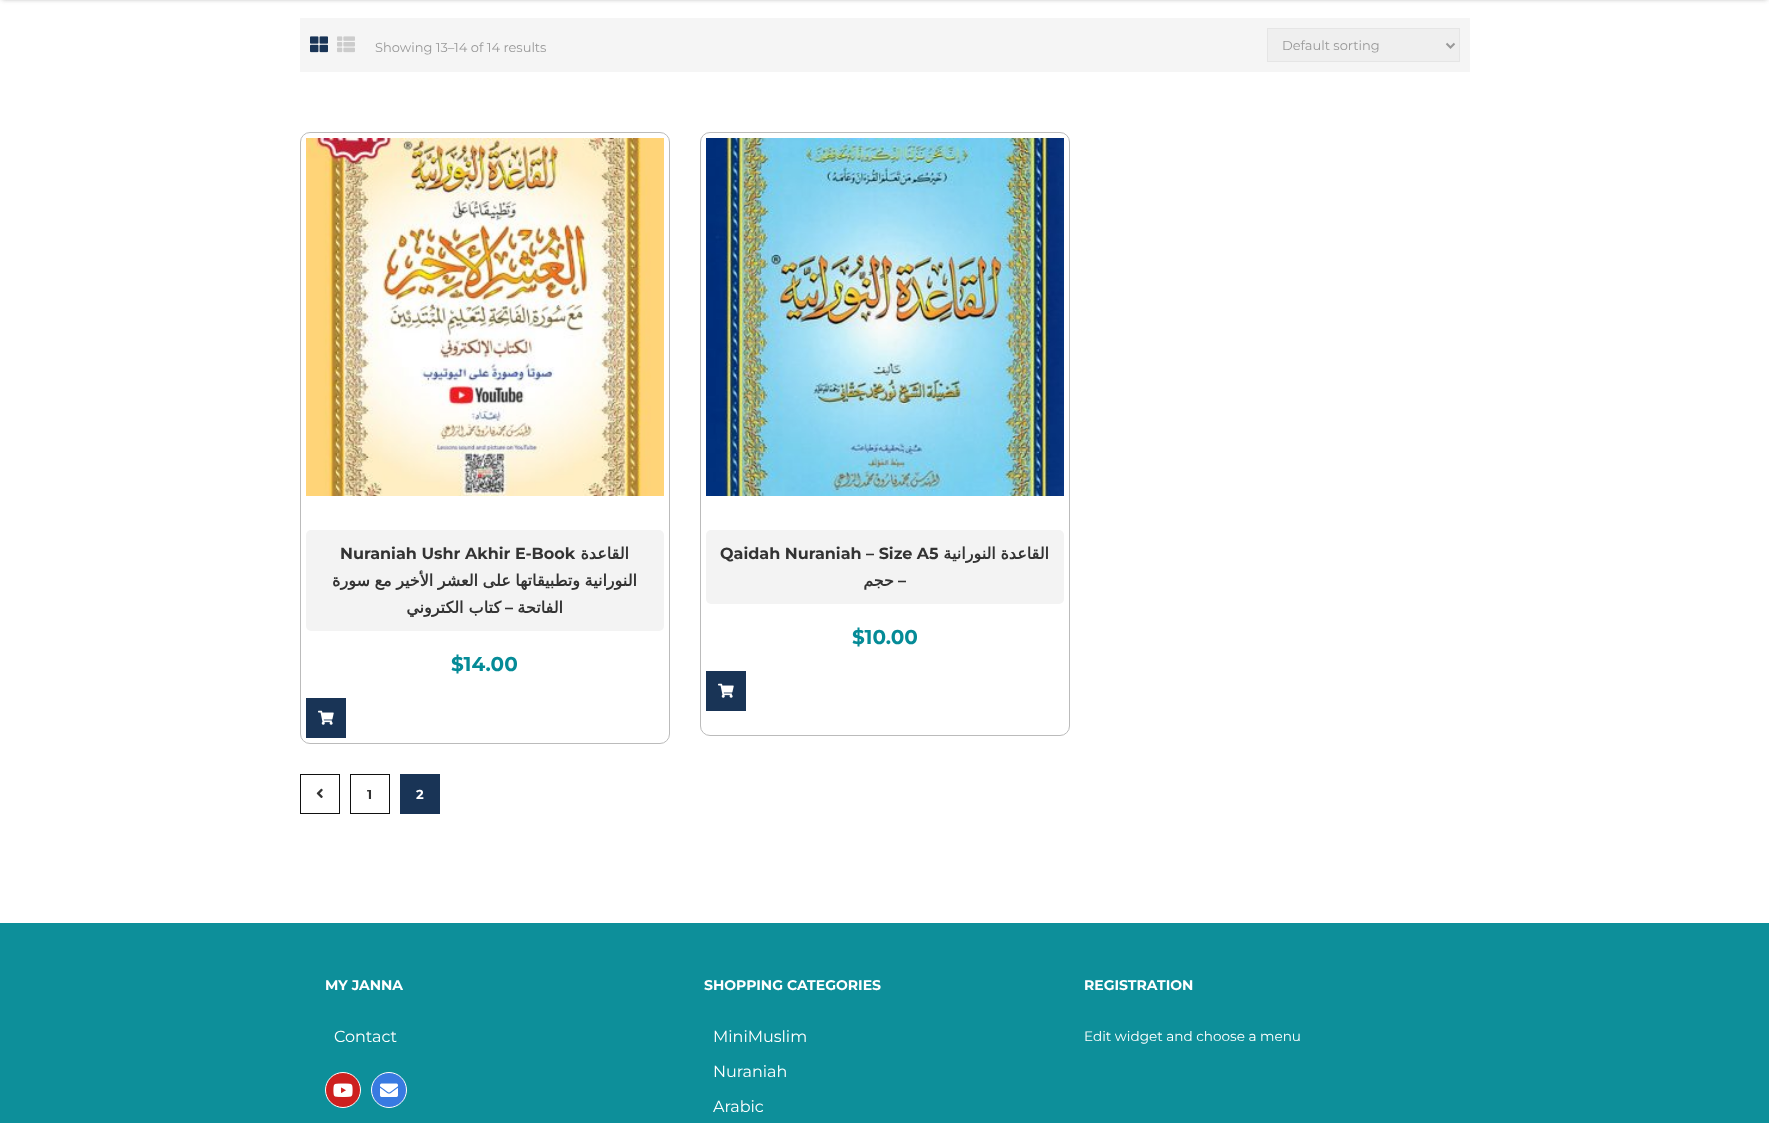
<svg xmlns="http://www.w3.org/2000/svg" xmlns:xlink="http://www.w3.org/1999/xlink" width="1769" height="1123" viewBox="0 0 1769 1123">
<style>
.cls-1{font:13px Montserrat;fill:#999999}
.cls-2{font:bold 16px Montserrat;fill:#333333}
.cls-3{font:bold 16px DejaVu Sans;direction:rtl;fill:#333333}
.cls-4{font:bold 16px Montserrat;direction:rtl;fill:#333333}
.cls-5{font:bold 20px Montserrat;fill:#058b97}
.cls-6{font:bold 13px Montserrat;fill:#333333}
.cls-7{font:bold 13px Montserrat;fill:#ffffff}
.cls-8{font:bold 14px Montserrat;fill:#ffffff}
.cls-9{font:16px Montserrat;fill:#ffffff}
.cls-10{font:13.6px Montserrat;fill:#ffffff}
</style>
<rect width="100%" height="100%" fill="#ffffff"/>
<rect fill="#2a2a2a" fill-opacity="0.4" filter="blur(2.5px)" x="2" y="-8" width="1765" height="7"/>
<rect fill="#f5f5f5" x="300" y="18" width="1170" height="54"/>
<image xlink:href="image0.png" x="310" y="36" width="18" height="17"/>
<image xlink:href="image1.png" x="337" y="36" width="18" height="17"/>
<rect fill="#efefef" stroke="#e5e5e5" x="1267.5" y="28.5" width="192" height="33"/>
<path fill="none" stroke="#999999" stroke-width="2" d="M1446.5 43.5L1450.5 47.5L1454.5 43.5"/>
<rect fill="none" stroke="#bbbbbb" x="300.5" y="132.5" width="369" height="611" rx="9.5"/>
<image xlink:href="image2.png" x="306" y="138" width="358" height="358"/>
<rect fill="#f3f3f3" x="306" y="530" width="358" height="101" rx="5"/>
<rect fill="#193456" x="306" y="698" width="40" height="40"/>
<image xlink:href="image3.png" x="318" y="710" width="16" height="15"/>
<rect fill="none" stroke="#bbbbbb" x="700.5" y="132.5" width="369" height="603" rx="9.5"/>
<image xlink:href="image4.png" x="706" y="138" width="358" height="358"/>
<rect fill="#f3f3f3" x="706" y="530" width="358" height="74" rx="5"/>
<rect fill="#193456" x="706" y="671" width="40" height="40"/>
<image xlink:href="image3.png" x="718" y="683" width="16" height="15"/>
<rect fill="none" stroke="#111111" x="300.5" y="774.5" width="39" height="39"/>
<image xlink:href="image5.png" x="316" y="788" width="7" height="10"/>
<rect fill="none" stroke="#111111" x="350.5" y="774.5" width="39" height="39"/>
<rect fill="#193456" x="400" y="774" width="40" height="40"/>
<rect fill="#0d8f9a" x="0" y="923" width="1769" height="200"/>
<circle fill="#cd201f" stroke="#ffffff" cx="343" cy="1090" r="17.5"/>
<image xlink:href="image6.png" x="333" y="1083" width="20" height="14"/>
<circle fill="#387ae1" stroke="#ffffff" cx="389" cy="1090" r="17.5"/>
<image xlink:href="image7.png" x="380" y="1083" width="18" height="14"/>
<text class="cls-1" x="375" y="52">Showing 13–14 of 14 results</text>
<text class="cls-1" x="1282" y="50">Default sorting</text>
<text class="cls-2" x="340" y="559">Nuraniah Ushr Akhir E-Book</text>
<text class="cls-3" x="629" y="559">القاعدة</text>
<text class="cls-3" x="637" y="586" word-spacing="-0.5">النورانية وتطبيقاتها على العشر الأخير مع سورة</text>
<text class="cls-3" x="501" y="613">كتاب الكتروني</text>
<text class="cls-4" x="513" y="613">–</text>
<text class="cls-3" x="563" y="613">الفاتحة</text>
<text class="cls-5" x="451" y="671">$14.00</text>
<text class="cls-2" x="720" y="559">Qaidah Nuraniah – Size A5</text>
<text class="cls-3" x="1049" y="559" word-spacing="-0.5">القاعدة النورانية</text>
<text class="cls-3" x="894" y="586">حجم</text>
<text class="cls-4" x="906" y="586">–</text>
<text class="cls-5" x="852" y="644">$10.00</text>
<text class="cls-6" x="367" y="799">1</text>
<text class="cls-7" x="416" y="799">2</text>
<text class="cls-8" x="325" y="990">MY JANNA</text>
<text class="cls-9" x="334" y="1042">Contact</text>
<text class="cls-8" x="704" y="990">SHOPPING CATEGORIES</text>
<text class="cls-9" x="713" y="1042">MiniMuslim</text>
<text class="cls-9" x="713" y="1077">Nuraniah</text>
<text class="cls-9" x="713" y="1112">Arabic</text>
<text class="cls-8" x="1084" y="990">REGISTRATION</text>
<text class="cls-10" x="1084" y="1041">Edit widget and choose a menu</text>
</svg>
